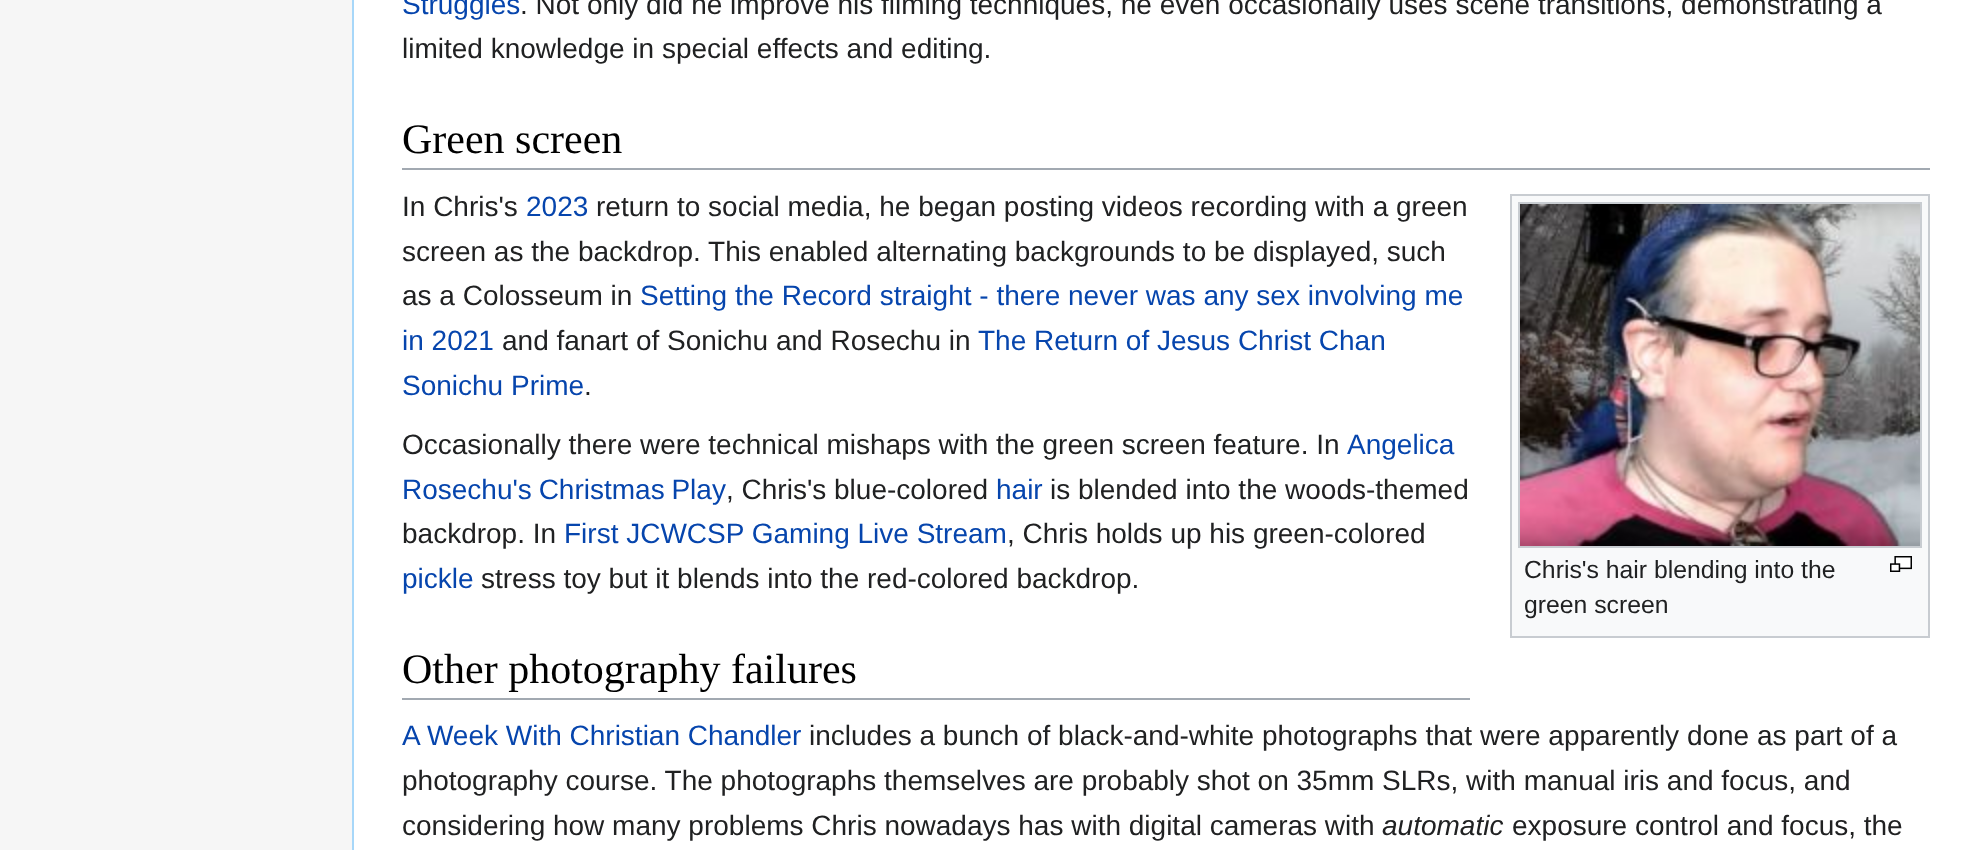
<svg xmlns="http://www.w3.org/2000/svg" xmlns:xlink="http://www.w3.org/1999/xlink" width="1978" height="850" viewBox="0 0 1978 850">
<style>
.cls-1{font:28px Liberation Sans;fill:#0645ad}
.cls-2{font:28px Liberation Sans;fill:#202122}
.cls-3{font:42px Liberation Serif;fill:#000000}
.cls-4{font:24.75px Liberation Sans;fill:#202122}
.cls-5{font:italic 28px Liberation Sans;fill:#202122}
</style>
<rect width="100%" height="100%" fill="#f6f6f6"/>
<rect fill="#ffffff" x="354" y="0" width="1624" height="850"/>
<rect fill="#a7d7f9" x="352" y="0" width="2" height="850"/>
<rect fill="#a2a9b1" x="402" y="168" width="1528" height="2"/>
<rect fill="#f8f9fa" stroke="#c8ccd1" stroke-width="2" x="1511" y="195" width="418" height="442"/>
<rect fill="none" stroke="#c8ccd1" stroke-width="2" x="1519" y="203" width="402" height="344"/>
<image xlink:href="image0.png" x="1520" y="204" width="400" height="342"/>
<image xlink:href="image1.png" x="1890" y="556" width="22" height="16"/>
<rect fill="#a2a9b1" x="402" y="698" width="1068" height="2"/>
<text class="cls-1" x="402" y="14">Struggles</text>
<text class="cls-2" x="520" y="14">. Not only did he improve his filming techniques, he even occasionally uses scene transitions, demonstrating a</text>
<text class="cls-2" x="402" y="58">limited knowledge in special effects and editing.</text>
<text class="cls-3" x="402" y="153">Green screen</text>
<text class="cls-2" x="402" y="216">In Chris's</text>
<text class="cls-1" x="526" y="216">2023</text>
<text class="cls-2" x="596" y="216">return to social media, he began posting videos recording with a green</text>
<text class="cls-2"><tspan x="402" y="261">screen as the backdrop. This enabled alternating backgrounds to be displayed, such</tspan><tspan x="402" y="305">as a Colosseum in</tspan></text>
<text class="cls-1" x="640" y="305">Setting the Record straight - there never was any sex involving me</text>
<text class="cls-1" x="402" y="350">in 2021</text>
<text class="cls-2" x="502" y="350">and fanart of Sonichu and Rosechu in</text>
<text class="cls-1" x="978" y="350">The Return of Jesus Christ Chan</text>
<text class="cls-1" x="402" y="395">Sonichu Prime</text>
<text class="cls-2" x="584" y="395">.</text>
<text class="cls-2" x="402" y="454" word-spacing="-0.1">Occasionally there were technical mishaps with the green screen feature. In</text>
<text class="cls-1" x="1347" y="454">Angelica</text>
<text class="cls-1" x="402" y="499" word-spacing="-1">Rosechu's Christmas Play</text>
<text class="cls-2" x="726" y="499">, Chris's blue-colored</text>
<text class="cls-1" x="996" y="499">hair</text>
<text class="cls-2" x="1050" y="499">is blended into the woods-themed</text>
<text class="cls-2" x="402" y="543">backdrop. In</text>
<text class="cls-1" x="564" y="543">First JCWCSP Gaming Live Stream</text>
<text class="cls-2" x="1007" y="543">, Chris holds up his green-colored</text>
<text class="cls-1" x="402" y="588">pickle</text>
<text class="cls-2" x="481" y="588">stress toy but it blends into the red-colored backdrop.</text>
<text class="cls-4"><tspan x="1524" y="578">Chris's hair blending into the</tspan><tspan x="1524" y="613">green screen</tspan></text>
<text class="cls-3" x="402" y="683">Other photography failures</text>
<text class="cls-1" x="402" y="745">A Week With Christian Chandler</text>
<text class="cls-2" x="809" y="745">includes a bunch of black-and-white photographs that were apparently done as part of a</text>
<text class="cls-2"><tspan x="402" y="790">photography course. The photographs themselves are probably shot on 35mm SLRs, with manual iris and focus, and</tspan><tspan x="402" y="835">considering how many problems Chris nowadays has with digital cameras with</tspan></text>
<text class="cls-5" x="1382" y="835">automatic</text>
<text class="cls-2" x="1512" y="835">exposure control and focus, the</text>
</svg>
